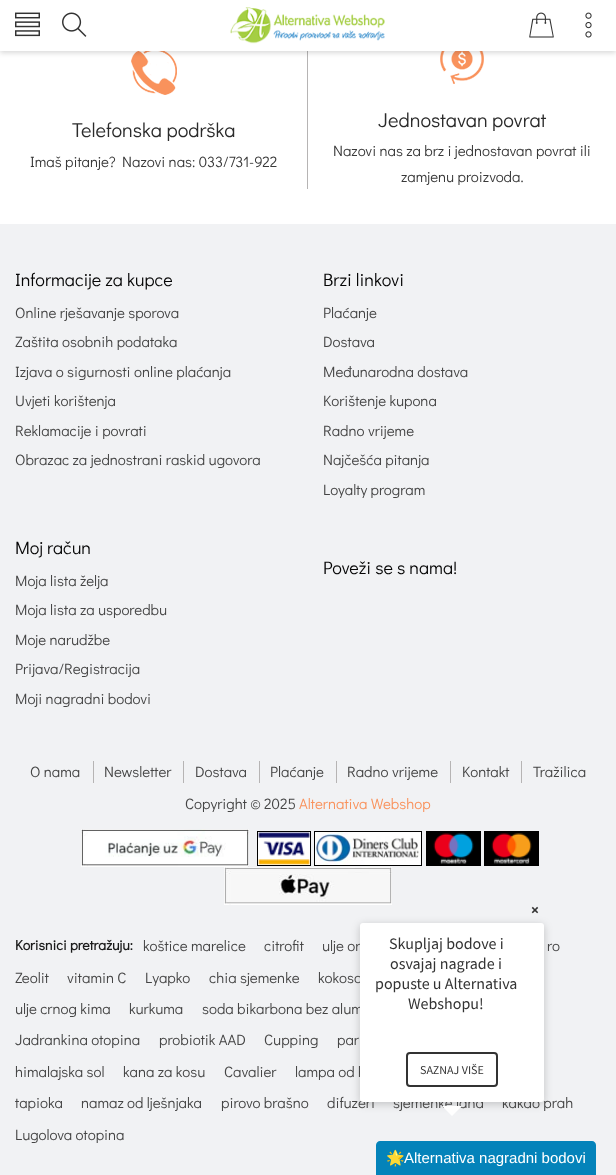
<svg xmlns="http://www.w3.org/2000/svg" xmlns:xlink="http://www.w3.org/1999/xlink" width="616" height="1175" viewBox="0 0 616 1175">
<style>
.cls-1{font:20px Didact Gothic;fill:#2b2b2b}
.cls-2{font:15px Didact Gothic;fill:#393939}
.cls-3{font:18px Didact Gothic;fill:#050505}
.cls-4{font:15px Didact Gothic;fill:#454545}
.cls-5{font:15px Didact Gothic;fill:#f9925c}
.cls-6{font:bold 14px Didact Gothic;fill:#1b1b1b}
.cls-7{font:bold 15px Source Sans Pro;fill:#333333}
.cls-8{font:16px Source Sans Pro;fill:#333333}
.cls-9{font:12px Source Sans Pro;fill:#333333}
.cls-10{font:15px Noto Color Emoji;fill:#ffffff}
.cls-11{font:15px Liberation Sans;fill:#ffffff}
</style>
<rect width="100%" height="100%" fill="#ffffff"/>
<rect fill="#b6b4b4" x="307" y="51" width="1" height="138"/>
<image xlink:href="image5.png" x="131" y="51" width="46" height="44"/>
<image xlink:href="image6.png" x="440" y="51" width="44" height="33"/>
<rect fill="#000000" fill-opacity="0.15" filter="blur(2.5px)" x="0" y="2" width="616" height="51"/>
<rect fill="#ffffff" x="0" y="0" width="616" height="51"/>
<image xlink:href="image0.png" x="15" y="12" width="25" height="25"/>
<image xlink:href="image1.png" x="62" y="12" width="25" height="25"/>
<image xlink:href="image2.png" x="230" y="7" width="155" height="37"/>
<image xlink:href="image3.png" x="529" y="12" width="25" height="26"/>
<image xlink:href="image4.png" x="585" y="12" width="7" height="26"/>
<rect fill="#f1f2f4" x="0" y="224" width="616" height="951"/>
<rect fill="#b6b4b4" x="93" y="761" width="1" height="22"/>
<rect fill="#b6b4b4" x="183" y="761" width="1" height="22"/>
<rect fill="#b6b4b4" x="259" y="761" width="1" height="22"/>
<rect fill="#b6b4b4" x="336" y="761" width="1" height="22"/>
<rect fill="#b6b4b4" x="450" y="761" width="1" height="22"/>
<rect fill="#b6b4b4" x="521" y="761" width="1" height="22"/>
<image xlink:href="image7.png" x="81" y="829" width="168" height="38"/>
<rect fill="none" stroke="#000000" x="257.5" y="831.5" width="53" height="34"/>
<rect fill="none" stroke="#000000" x="314.5" y="831.5" width="107" height="34"/>
<image xlink:href="image8.png" x="426" y="831" width="55" height="35"/>
<image xlink:href="image9.png" x="484" y="831" width="55" height="35"/>
<image xlink:href="image10.png" x="258" y="832" width="52" height="33"/>
<image xlink:href="image11.png" x="315" y="832" width="106" height="33"/>
<image xlink:href="image12.png" x="224" y="867" width="168" height="38"/>
<rect fill="#000000" fill-opacity="0.2" filter="blur(4px)" x="360" y="925" width="184" height="179" rx="3"/>
<path fill="#0483ba" d="M380 1141H592C594 1141 596 1143 596 1145V1175H376V1145C376 1143 378 1141 380 1141Z"/>
<text class="cls-1" x="72" y="137">Telefonska podrška</text>
<text class="cls-2" x="30" y="167">Imaš pitanje? Nazovi nas: 033/731-922</text>
<text class="cls-1" x="378" y="127">Jednostavan povrat</text>
<text class="cls-2" x="333" y="156">Nazovi nas za brz i jednostavan povrat ili</text>
<text class="cls-2" x="401" y="182">zamjenu proizvoda.</text>
<text class="cls-3" x="15" y="286">Informacije za kupce</text>
<text class="cls-4"><tspan x="15" y="318">Online rješavanje sporova</tspan><tspan x="15" y="347">Zaštita osobnih podataka</tspan></text>
<text class="cls-4"><tspan x="15" y="377">Izjava o sigurnosti online plaćanja</tspan><tspan x="15" y="406">Uvjeti korištenja</tspan></text>
<text class="cls-4"><tspan x="15" y="436">Reklamacije i povrati</tspan><tspan x="15" y="465">Obrazac za jednostrani raskid ugovora</tspan></text>
<text class="cls-3" x="323" y="286">Brzi linkovi</text>
<text class="cls-4"><tspan x="323" y="318">Plaćanje</tspan><tspan x="323" y="347">Dostava</tspan></text>
<text class="cls-4"><tspan x="323" y="377">Međunarodna dostava</tspan><tspan x="323" y="406">Korištenje kupona</tspan></text>
<text class="cls-4"><tspan x="323" y="436">Radno vrijeme</tspan><tspan x="323" y="465">Najčešća pitanja</tspan></text>
<text class="cls-4" x="323" y="495">Loyalty program</text>
<text class="cls-3" x="15" y="554">Moj račun</text>
<text class="cls-4"><tspan x="15" y="586">Moja lista želja</tspan><tspan x="15" y="615">Moja lista za usporedbu</tspan></text>
<text class="cls-4"><tspan x="15" y="645">Moje narudžbe</tspan><tspan x="15" y="674">Prijava/Registracija</tspan></text>
<text class="cls-4" x="15" y="704">Moji nagradni bodovi</text>
<text class="cls-3" x="323" y="574">Poveži se s nama!</text>
<text class="cls-4" x="30" y="777">O nama</text>
<text class="cls-4" x="104" y="777">Newsletter</text>
<text class="cls-4" x="195" y="777">Dostava</text>
<text class="cls-4" x="270" y="777">Plaćanje</text>
<text class="cls-4" x="347" y="777">Radno vrijeme</text>
<text class="cls-4" x="462" y="777">Kontakt</text>
<text class="cls-4" x="533" y="777">Tražilica</text>
<text class="cls-4" x="185" y="809">Copyright © 2025</text>
<text class="cls-5" x="299" y="809">Alternativa Webshop</text>
<text class="cls-4" x="143" y="951">koštice marelice</text>
<text class="cls-4" x="264" y="951">citrofit</text>
<text class="cls-4" x="322" y="951">ulje or</text>
<text class="cls-4" x="547" y="951">ro</text>
<text class="cls-4" x="15" y="983">Zeolit</text>
<text class="cls-4" x="67" y="983">vitamin C</text>
<text class="cls-4" x="145" y="983">Lyapko</text>
<text class="cls-4" x="209" y="983">chia sjemenke</text>
<text class="cls-4" x="318" y="983">kokoso</text>
<text class="cls-4" x="15" y="1014">ulje crnog kima</text>
<text class="cls-4" x="129" y="1014">kurkuma</text>
<text class="cls-4" x="202" y="1014">soda bikarbona bez alum</text>
<text class="cls-4" x="15" y="1045">Jadrankina otopina</text>
<text class="cls-4" x="159" y="1045">probiotik AAD</text>
<text class="cls-4" x="264" y="1045">Cupping</text>
<text class="cls-4" x="337" y="1045">par</text>
<text class="cls-4" x="15" y="1077">himalajska sol</text>
<text class="cls-4" x="123" y="1077">kana za kosu</text>
<text class="cls-4" x="224" y="1077">Cavalier</text>
<text class="cls-4" x="295" y="1077">lampa od h</text>
<text class="cls-4" x="15" y="1108">tapioka</text>
<text class="cls-4" x="81" y="1108">namaz od lješnjaka</text>
<text class="cls-4" x="221" y="1108">pirovo brašno</text>
<text class="cls-4" x="327" y="1108">difuzeri</text>
<text class="cls-4" x="393" y="1108">sjemenke lana</text>
<text class="cls-4" x="502" y="1108">kakao prah</text>
<text class="cls-4" x="15" y="1140">Lugolova otopina</text>
<text class="cls-6" x="15" y="950">Korisnici pretražuju:</text>
<text class="cls-7" x="531" y="915">×</text>
<rect fill="#ffffff" x="360" y="923" width="184" height="179" rx="3"/>
<text class="cls-8" x="389" y="949">Skupljaj bodove i</text>
<text class="cls-8" x="390" y="969">osvajaj nagrade i</text>
<text class="cls-8" x="375" y="989">popuste u Alternativa</text>
<text class="cls-8" x="408" y="1009">Webshopu!</text>
<rect fill="none" stroke="#333333" stroke-width="2" x="407" y="1053" width="90" height="33" rx="3"/>
<text class="cls-9" x="420" y="1074">SAZNAJ VIŠE</text>
<path fill="#ffffff" d="M442 1106H462L452 1116Z"/>
<text class="cls-10" x="386" y="1163">🌟</text>
<text class="cls-11" x="404" y="1163">Alternativa nagradni bodovi</text>
</svg>
